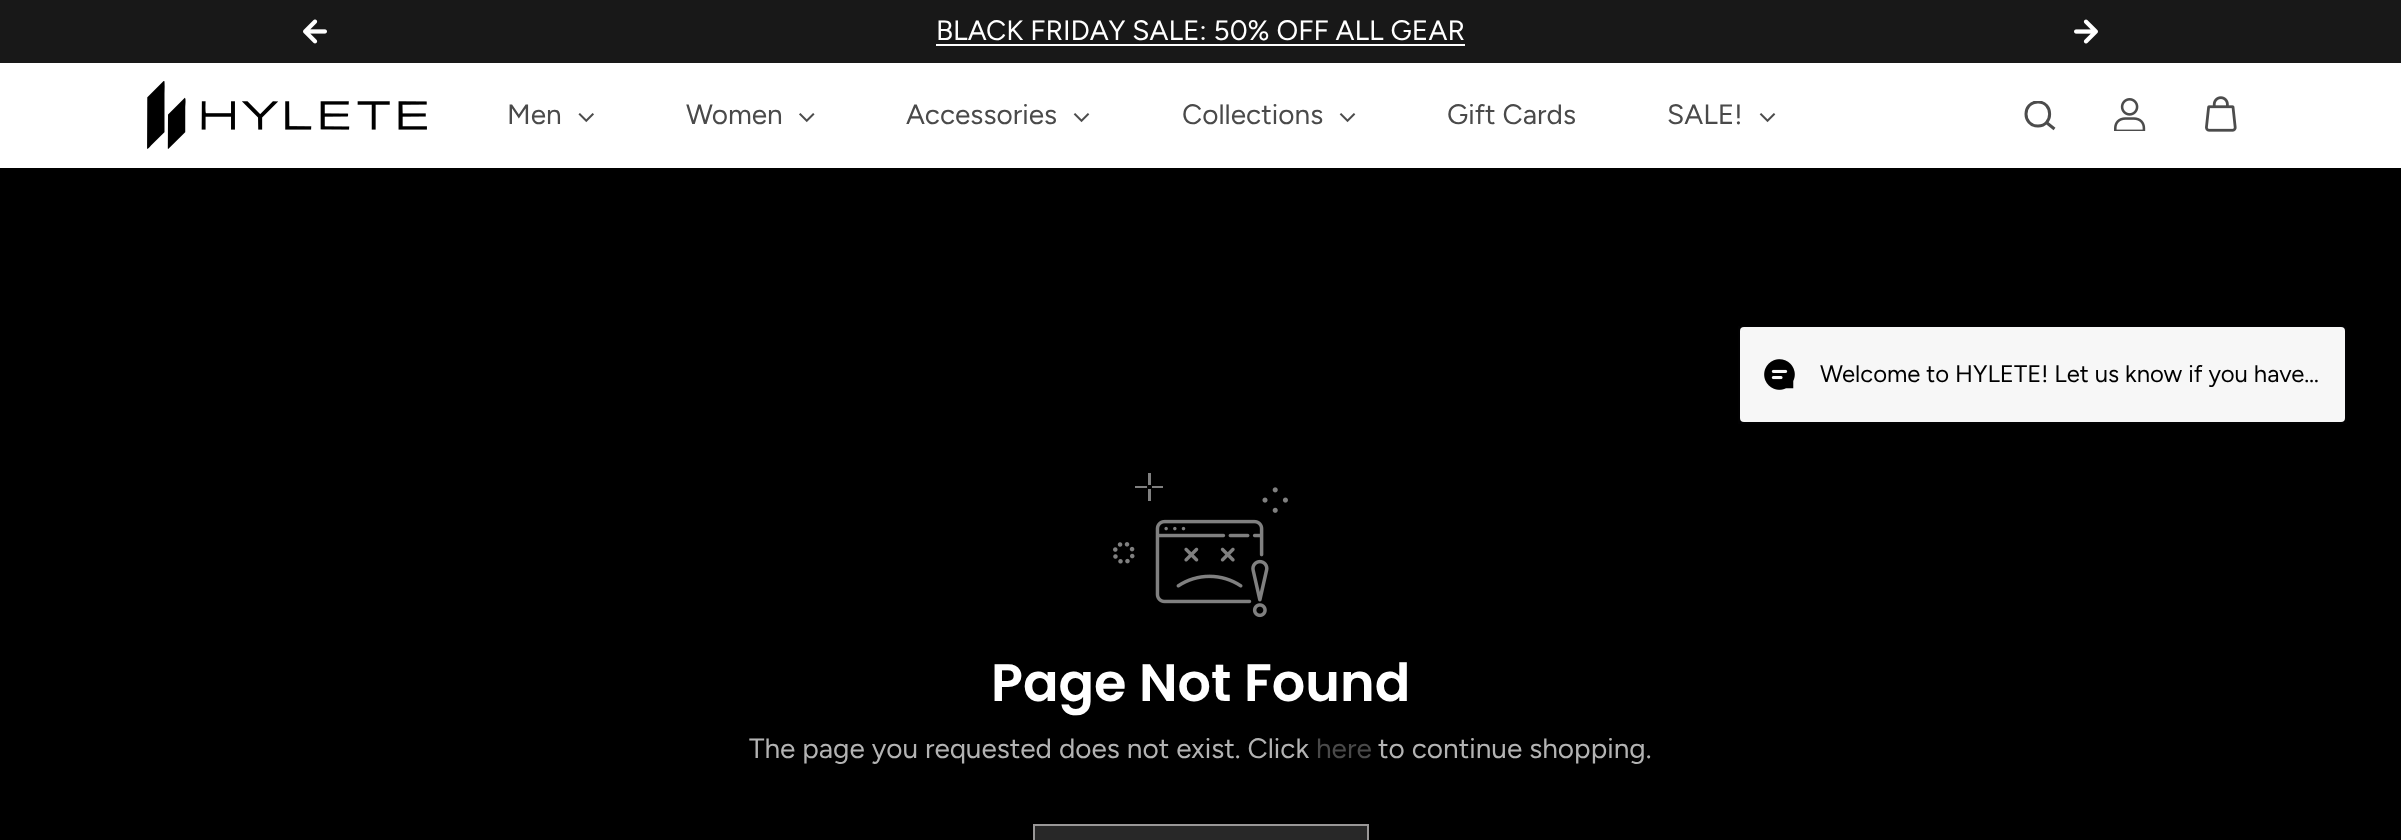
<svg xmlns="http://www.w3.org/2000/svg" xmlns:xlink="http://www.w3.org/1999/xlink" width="2401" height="840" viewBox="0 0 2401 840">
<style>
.cls-1{font:28px Figtree;fill:#ffffff}
.cls-2{font:28px Figtree;fill:#4a4a4a}
.cls-3{font:600 52.5px Poppins;fill:#ffffff}
.cls-4{font:28px Figtree;fill:#b3b3b3}
.cls-5{font:23.9px Figtree;fill:#000000}
</style>
<defs>
<clipPath id="clip1"><rect x="2024" y="101" width="31" height="30"/></clipPath>
</defs>
<rect width="100%" height="100%" fill="#000000"/>
<rect fill="#181818" x="0" y="0" width="2401" height="63"/>
<image xlink:href="image0.png" x="303" y="19" width="24" height="25"/>
<rect fill="#ffffff" x="936" y="44" width="529" height="2"/>
<image xlink:href="image1.png" x="2074" y="19" width="24" height="25"/>
<rect fill="#ffffff" x="0" y="63" width="2401" height="105"/>
<image xlink:href="image2.png" x="147" y="81" width="280" height="68"/>
<image xlink:href="image3.png" x="578" y="113" width="16" height="10"/>
<image xlink:href="image4.png" x="799" y="113" width="16" height="10"/>
<image xlink:href="image5.png" x="1073" y="113" width="17" height="10"/>
<image xlink:href="image5.png" x="1339" y="113" width="17" height="10"/>
<image xlink:href="image5.png" x="1759" y="113" width="17" height="10"/>
<g clip-path="url(#clip1)">
<path fill="none" stroke="#4c4c4c" stroke-width="3" d="M2038 126C2053.5 126 2053.5 102 2038 102C2022 102 2022 126 2038 126Z"/>
</g>
<path fill="none" stroke="#4c4c4c" stroke-width="3" d="M2047 123L2054.5 129"/>
<image xlink:href="image6.png" x="2114" y="98" width="32" height="33"/>
<image xlink:href="image7.png" x="2205" y="96" width="32" height="36"/>
<image xlink:href="image8.png" x="1113" y="473" width="175" height="145"/>
<rect fill="#282828" stroke="#999797" stroke-width="2" x="1034" y="825" width="334" height="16"/>
<rect fill="none" stroke="#373f47" stroke-opacity="0.04" stroke-width="2" x="1739" y="327" width="607" height="96"/>
<rect fill="#f7f7f7" x="1740" y="327" width="605" height="95" rx="4"/>
<image xlink:href="image9.png" x="1764" y="359" width="31" height="31"/>
<text class="cls-1" x="936" y="40">BLACK FRIDAY SALE: 50% OFF ALL GEAR</text>
<text class="cls-2" x="507" y="124">Men</text>
<text class="cls-2" x="686" y="124">Women</text>
<text class="cls-2" x="906" y="124">Accessories</text>
<text class="cls-2" x="1182" y="124">Collections</text>
<text class="cls-2" x="1447" y="124">Gift Cards</text>
<text class="cls-2" x="1667" y="124">SALE!</text>
<text class="cls-3" x="991" y="701">Page Not Found</text>
<text class="cls-4" x="749" y="758">The page you requested does not exist. Click</text>
<text class="cls-2" x="1316" y="758">here</text>
<text class="cls-4" x="1378" y="758">to continue shopping.</text>
<text class="cls-5" x="1820" y="382">Welcome to HYLETE! Let us know if you have…</text>
</svg>
